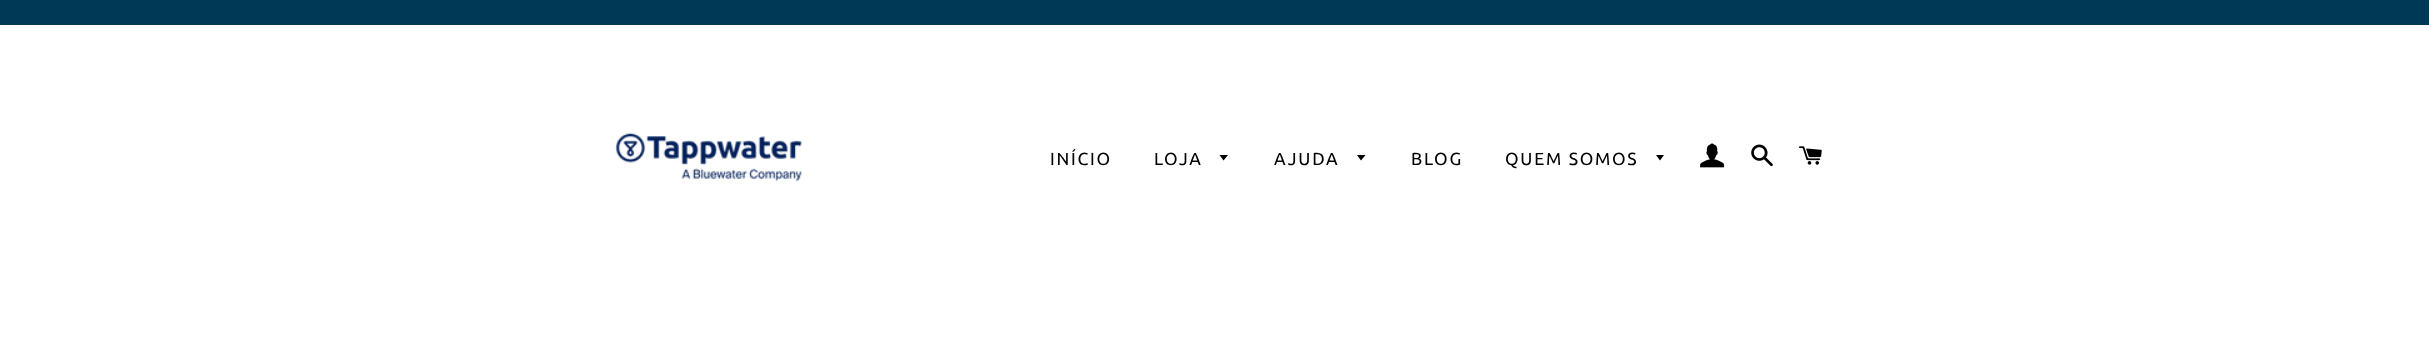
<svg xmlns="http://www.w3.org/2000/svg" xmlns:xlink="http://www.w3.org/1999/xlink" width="2429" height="337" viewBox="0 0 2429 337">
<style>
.cls-1{font:17.5px Ubuntu;letter-spacing:1.75px;fill:#000000}
</style>
<rect width="100%" height="100%" fill="#ffffff"/>
<rect fill="#003955" x="0" y="0" width="2429" height="25"/>
<image xlink:href="image0.png" x="615" y="132" width="187" height="50"/>
<path fill="#000000" d="M1219.5 155L1223.5 160.5L1228 155Z"/>
<path fill="#000000" d="M1357 155L1361 160.5L1365.5 155Z"/>
<path fill="#000000" d="M1656 155L1660 160.5L1664 155Z"/>
<image xlink:href="image1.png" x="1700" y="143" width="25" height="25"/>
<image xlink:href="image2.png" x="1751" y="144" width="22" height="23"/>
<image xlink:href="image3.png" x="1799" y="146" width="23" height="19"/>
<text class="cls-1" x="1050" y="165">INÍCIO</text>
<text class="cls-1" x="1154" y="165">LOJA</text>
<text class="cls-1" x="1274" y="165">AJUDA</text>
<text class="cls-1" x="1411" y="165">BLOG</text>
<text class="cls-1" x="1505" y="165">QUEM SOMOS</text>
</svg>
